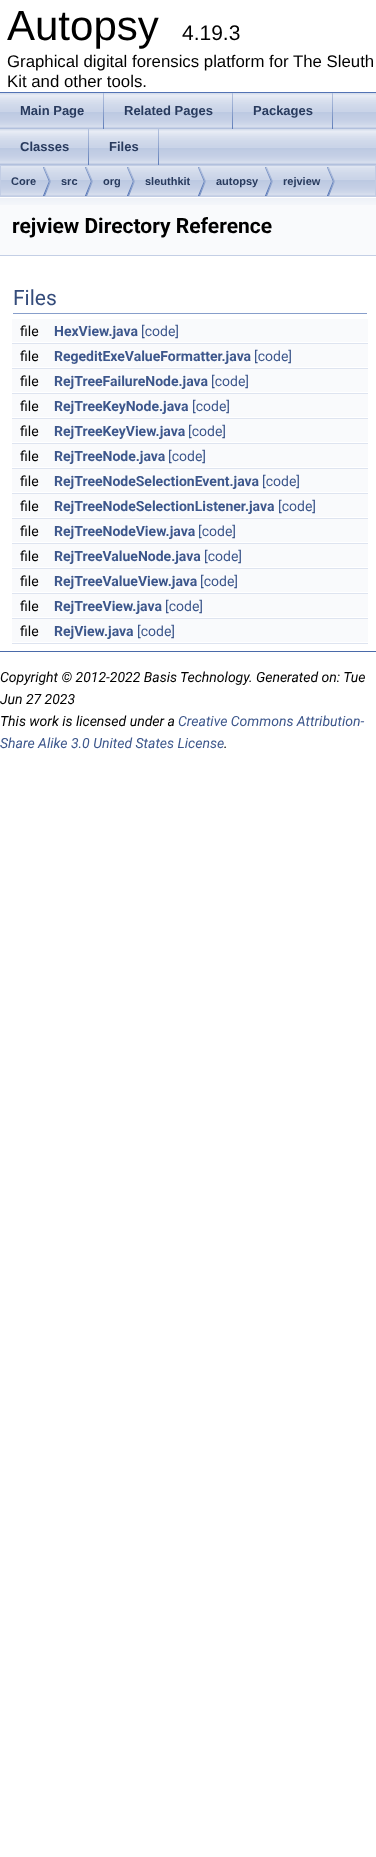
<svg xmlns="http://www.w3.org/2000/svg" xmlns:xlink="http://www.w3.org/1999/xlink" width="376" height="1857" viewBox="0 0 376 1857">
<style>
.cls-1{font:42px Liberation Sans;fill:#000000}
.cls-2{font:21px Liberation Sans;fill:#000000}
.cls-3{font:16.8px Liberation Sans;fill:#000000}
.cls-4{font:bold 13px Liberation Sans;fill:#283a5d}
.cls-5{font:bold 11px Liberation Sans;fill:#283a5d}
.cls-6{font:bold 21px Roboto;fill:#000000}
.cls-7{font:21px Roboto;fill:#354c7b}
.cls-8{font:14px Roboto;fill:#000000}
.cls-9{font:bold 14px Roboto;fill:#3d578c}
.cls-10{font:14px Roboto;fill:#3d578c}
.cls-11{font:italic 14px Roboto;fill:#000000}
.cls-12{font:italic 14px Roboto;fill:#3d578c}
</style>
<rect width="100%" height="100%" fill="#ffffff"/>
<rect fill="#5373b4" x="0" y="92" width="376" height="1"/>
<image xlink:href="image0.png" x="0" y="93" width="376" height="72"/>
<image xlink:href="image1.png" x="103" y="93" width="1" height="36"/>
<image xlink:href="image1.png" x="232" y="93" width="1" height="36"/>
<image xlink:href="image1.png" x="332" y="93" width="1" height="36"/>
<image xlink:href="image1.png" x="88" y="129" width="1" height="36"/>
<image xlink:href="image1.png" x="158" y="129" width="1" height="36"/>
<image xlink:href="image2.png" x="1" y="166" width="374" height="30"/>
<rect fill="none" stroke="#c2cde4" x="0.5" y="165.5" width="375" height="31"/>
<image xlink:href="image3.png" x="43" y="167" width="8" height="29"/>
<image xlink:href="image3.png" x="85" y="167" width="8" height="29"/>
<image xlink:href="image3.png" x="127" y="167" width="8" height="29"/>
<image xlink:href="image3.png" x="198" y="167" width="8" height="29"/>
<image xlink:href="image3.png" x="265" y="167" width="8" height="29"/>
<image xlink:href="image3.png" x="327" y="167" width="8" height="29"/>
<rect fill="#f9fafc" x="0" y="205" width="376" height="50"/>
<image xlink:href="image4.png" x="0" y="197" width="376" height="8"/>
<rect fill="#c4cfe5" x="0" y="255" width="376" height="1"/>
<rect fill="#879ecb" x="13" y="313" width="354" height="1"/>
<rect fill="#f9fafc" x="12" y="319" width="356" height="23"/>
<rect fill="#dee4f0" x="12" y="343" width="356" height="1"/>
<rect fill="#f9fafc" x="12" y="344" width="356" height="23"/>
<rect fill="#dee4f0" x="12" y="368" width="356" height="1"/>
<rect fill="#f9fafc" x="12" y="369" width="356" height="23"/>
<rect fill="#dee4f0" x="12" y="393" width="356" height="1"/>
<rect fill="#f9fafc" x="12" y="394" width="356" height="23"/>
<rect fill="#dee4f0" x="12" y="418" width="356" height="1"/>
<rect fill="#f9fafc" x="12" y="419" width="356" height="23"/>
<rect fill="#dee4f0" x="12" y="443" width="356" height="1"/>
<rect fill="#f9fafc" x="12" y="444" width="356" height="23"/>
<rect fill="#dee4f0" x="12" y="468" width="356" height="1"/>
<rect fill="#f9fafc" x="12" y="469" width="356" height="23"/>
<rect fill="#dee4f0" x="12" y="493" width="356" height="1"/>
<rect fill="#f9fafc" x="12" y="494" width="356" height="23"/>
<rect fill="#dee4f0" x="12" y="518" width="356" height="1"/>
<rect fill="#f9fafc" x="12" y="519" width="356" height="23"/>
<rect fill="#dee4f0" x="12" y="543" width="356" height="1"/>
<rect fill="#f9fafc" x="12" y="544" width="356" height="23"/>
<rect fill="#dee4f0" x="12" y="568" width="356" height="1"/>
<rect fill="#f9fafc" x="12" y="569" width="356" height="23"/>
<rect fill="#dee4f0" x="12" y="593" width="356" height="1"/>
<rect fill="#f9fafc" x="12" y="594" width="356" height="23"/>
<rect fill="#dee4f0" x="12" y="618" width="356" height="1"/>
<rect fill="#f9fafc" x="12" y="619" width="356" height="23"/>
<rect fill="#dee4f0" x="12" y="643" width="356" height="1"/>
<rect fill="#4a6aaa" x="0" y="651" width="376" height="1"/>
<text class="cls-1" x="7" y="40">Autopsy</text>
<text class="cls-2" x="182" y="40">4.19.3</text>
<text class="cls-3"><tspan x="7" y="67">Graphical digital forensics platform for The Sleuth</tspan><tspan x="7" y="87">Kit and other tools.</tspan></text>
<text class="cls-4" x="20" y="115">Main Page</text>
<text class="cls-4" x="124" y="115">Related Pages</text>
<text class="cls-4" x="253" y="115">Packages</text>
<text class="cls-4" x="20" y="151">Classes</text>
<text class="cls-4" x="109" y="151">Files</text>
<text class="cls-5" x="11" y="185">Core</text>
<text class="cls-5" x="61" y="185">src</text>
<text class="cls-5" x="103" y="185">org</text>
<text class="cls-5" x="145" y="185">sleuthkit</text>
<text class="cls-5" x="216" y="185">autopsy</text>
<text class="cls-5" x="283" y="185">rejview</text>
<text class="cls-6" x="12" y="233">rejview Directory Reference</text>
<text class="cls-7" x="13" y="305">Files</text>
<text class="cls-8" x="20" y="336">file</text>
<text class="cls-9" x="54" y="336">HexView.java</text>
<text class="cls-10" x="141" y="336">[code]</text>
<text class="cls-8" x="20" y="361">file</text>
<text class="cls-9" x="54" y="361">RegeditExeValueFormatter.java</text>
<text class="cls-10" x="254" y="361">[code]</text>
<text class="cls-8" x="20" y="386">file</text>
<text class="cls-9" x="54" y="386">RejTreeFailureNode.java</text>
<text class="cls-10" x="211" y="386">[code]</text>
<text class="cls-8" x="20" y="411">file</text>
<text class="cls-9" x="54" y="411">RejTreeKeyNode.java</text>
<text class="cls-10" x="192" y="411">[code]</text>
<text class="cls-8" x="20" y="436">file</text>
<text class="cls-9" x="54" y="436">RejTreeKeyView.java</text>
<text class="cls-10" x="188" y="436">[code]</text>
<text class="cls-8" x="20" y="461">file</text>
<text class="cls-9" x="54" y="461">RejTreeNode.java</text>
<text class="cls-10" x="168" y="461">[code]</text>
<text class="cls-8" x="20" y="486">file</text>
<text class="cls-9" x="54" y="486">RejTreeNodeSelectionEvent.java</text>
<text class="cls-10" x="262" y="486">[code]</text>
<text class="cls-8" x="20" y="511">file</text>
<text class="cls-9" x="54" y="511">RejTreeNodeSelectionListener.java</text>
<text class="cls-10" x="278" y="511">[code]</text>
<text class="cls-8" x="20" y="536">file</text>
<text class="cls-9" x="54" y="536">RejTreeNodeView.java</text>
<text class="cls-10" x="198" y="536">[code]</text>
<text class="cls-8" x="20" y="561">file</text>
<text class="cls-9" x="54" y="561">RejTreeValueNode.java</text>
<text class="cls-10" x="204" y="561">[code]</text>
<text class="cls-8" x="20" y="586">file</text>
<text class="cls-9" x="54" y="586">RejTreeValueView.java</text>
<text class="cls-10" x="200" y="586">[code]</text>
<text class="cls-8" x="20" y="611">file</text>
<text class="cls-9" x="54" y="611">RejTreeView.java</text>
<text class="cls-10" x="165" y="611">[code]</text>
<text class="cls-8" x="20" y="636">file</text>
<text class="cls-9" x="54" y="636">RejView.java</text>
<text class="cls-10" x="137" y="636">[code]</text>
<text class="cls-11"><tspan x="0" y="682">Copyright © 2012-2022 Basis Technology. Generated on: Tue</tspan><tspan x="0" y="704">Jun 27 2023</tspan><tspan x="0" y="726">This work is licensed under a</tspan></text>
<text class="cls-12" x="178" y="726">Creative Commons Attribution-</text>
<text class="cls-12" x="0" y="748">Share Alike 3.0 United States License</text>
<text class="cls-11" x="224" y="748">.</text>
</svg>
